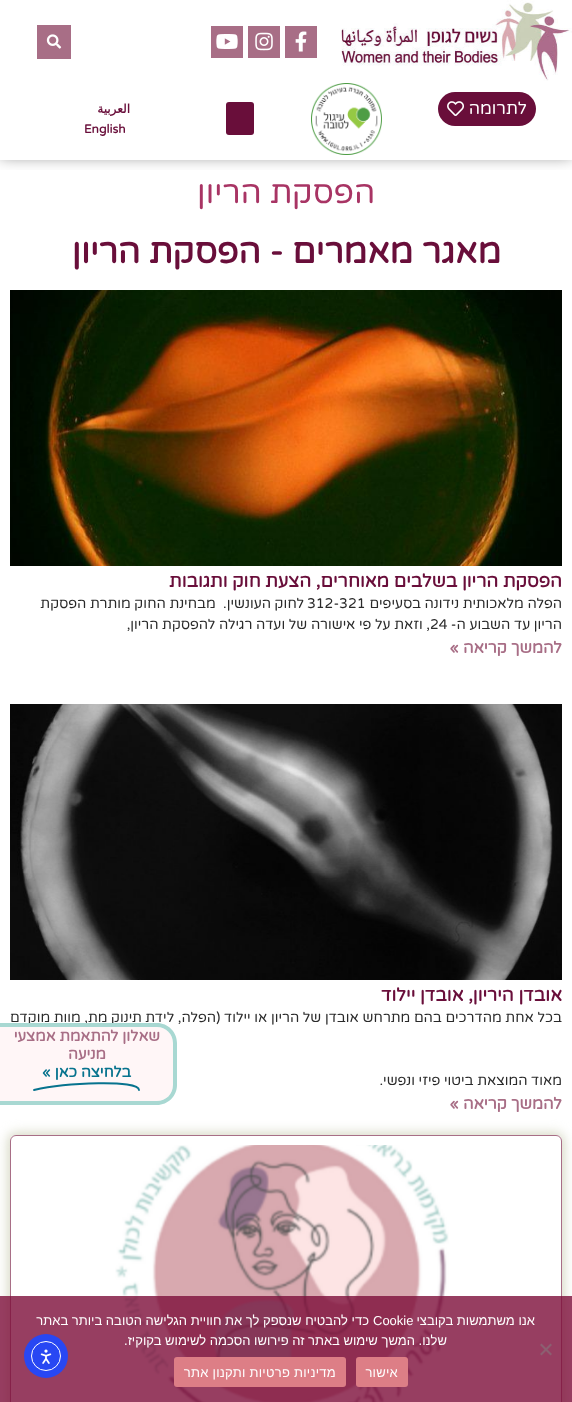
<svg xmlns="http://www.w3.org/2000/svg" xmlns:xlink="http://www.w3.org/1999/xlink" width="572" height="1402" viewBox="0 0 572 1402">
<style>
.cls-1{font:17px Varela Round;direction:rtl;fill:#ffffff}
.cls-2{font:bold 12px DejaVu Sans;direction:rtl;fill:#690e3a}
.cls-3{font:bold 12px Varela Round;fill:#690e3a}
.cls-4{font:32px Varela Round;direction:rtl;fill:#a83464}
.cls-5{font:bold 34px Varela Round;direction:rtl;fill:#690e3a}
.cls-6{font:bold 18px Varela Round;direction:rtl;fill:#690e3a}
.cls-7{font:14px Varela Round;direction:rtl;fill:#2a2a2a}
.cls-8{font:14px Varela Round;fill:#2a2a2a}
.cls-9{font:bold 16px Varela Round;direction:rtl;fill:#a86e86}
.cls-10{font:bold 15px Varela Round;direction:rtl;fill:#a86e86}
.cls-11{font:bold 15px Varela Round;direction:rtl;fill:#07738e}
.cls-12{font:13px Liberation Sans;direction:rtl;fill:#ffffff}
.cls-13{font:13px Liberation Sans;fill:#ffffff}
.cls-14{font:13px Liberation Sans;letter-spacing:0.25px;direction:rtl;fill:#ffffff}
</style>
<defs>
<clipPath id="clip1"><rect x="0" y="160" width="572" height="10"/></clipPath>
<clipPath id="clip2"><path d="M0 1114H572V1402H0ZM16 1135H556C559.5 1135 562 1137.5 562 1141V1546C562 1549.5 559.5 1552 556 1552H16C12.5 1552 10 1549.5 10 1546V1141C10 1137.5 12.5 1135 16 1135Z" clip-rule="evenodd"/></clipPath>
</defs>
<rect width="100%" height="100%" fill="#ffffff"/>
<g clip-path="url(#clip1)">
<rect fill="#000000" fill-opacity="0.5" filter="blur(8px)" x="0" y="-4" width="572" height="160"/>
</g>
<image xlink:href="image0.png" x="341" y="0" width="231" height="81"/>
<rect fill="#a86e86" x="285" y="26" width="32" height="32"/>
<image xlink:href="image1.png" x="295" y="31" width="12" height="21"/>
<rect fill="#a86e86" x="248" y="26" width="32" height="32"/>
<image xlink:href="image2.png" x="255" y="32" width="18" height="19"/>
<rect fill="#a86e86" x="211" y="26" width="32" height="32"/>
<image xlink:href="image3.png" x="216" y="34" width="22" height="15"/>
<rect fill="#a86e86" x="37" y="25" width="34" height="34"/>
<image xlink:href="image4.png" x="46" y="34" width="16" height="15"/>
<rect fill="#690e3a" x="438" y="92" width="98" height="34" rx="17"/>
<image xlink:href="image5.png" x="447" y="101" width="17" height="15"/>
<image xlink:href="image6.png" x="311" y="83" width="71" height="72"/>
<rect fill="#690e3a" x="226" y="102" width="28" height="33" rx="3"/>
<image xlink:href="image7.png" x="10" y="290" width="552" height="276"/>
<image xlink:href="image8.png" x="10" y="704" width="552" height="276"/>
<g clip-path="url(#clip2)">
<rect fill="#d5d7c2" filter="blur(6px)" x="8" y="1133" width="556" height="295" rx="8"/>
</g>
<rect fill="none" stroke="#a86e86" x="10.5" y="1135.5" width="551" height="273" rx="5.5"/>
<image xlink:href="image9.png" x="115" y="1145" width="334" height="257"/>
<path fill="#fff6f7" d="M0 1027H157C166 1027 173 1034 173 1043V1085C173 1094 166 1101 157 1101H0Z"/>
<rect fill="#7d0e3a" fill-opacity="0.8" x="0" y="1296" width="572" height="106"/>
<path fill="#8c5f71" d="M550.5 1343.5L552 1345L541.5 1355.5L540 1354Z"/>
<path fill="#8c5f71" d="M540 1345L541.5 1343.5L552 1354L550.5 1355.5Z"/>
<rect fill="#dd7e86" x="356" y="1357" width="52" height="30" rx="3"/>
<rect fill="#dd7e86" x="174" y="1357" width="172" height="30" rx="3"/>
<circle fill="#2847f3" cx="46" cy="1356" r="22"/>
<circle fill="none" stroke="#ffffff" cx="46" cy="1356" r="14.5"/>
<image xlink:href="image10.png" x="40" y="1349" width="12" height="15"/>
<text class="cls-1" x="527" y="114">לתרומה</text>
<text class="cls-2" x="130" y="113">العربية</text>
<text class="cls-3" x="84" y="133">English</text>
<text class="cls-4" x="375" y="203">הפסקת הריון</text>
<text class="cls-5" x="501" y="263">מאגר מאמרים - הפסקת הריון</text>
<text class="cls-6" x="562" y="587">הפסקת הריון בשלבים מאוחרים, הצעת חוק ותגובות</text>
<text class="cls-7" x="562" y="608">הפלה מלאכותית נידונה בסעיפים</text>
<text class="cls-8" x="307" y="608">312-321</text>
<text class="cls-7" xml:space="preserve" x="304" y="608">לחוק העונשין.  מבחינת החוק מותרת הפסקת</text>
<text class="cls-7" x="562" y="629">הריון עד השבוע ה-</text>
<text class="cls-8" x="430" y="629">24</text>
<text class="cls-7" x="430" y="629">, וזאת על פי אישורה של ועדה רגילה להפסקת הריון,</text>
<text class="cls-9" x="562" y="653">להמשך קריאה »</text>
<text class="cls-6" x="562" y="1001">אובדן היריון, אובדן יילוד</text>
<text class="cls-7" x="562" y="1022">בכל אחת מהדרכים בהם מתרחש אובדן של הריון או יילוד (הפלה, לידת תינוק מת, מוות מוקדם</text>
<text class="cls-7" x="562" y="1085">מאוד המוצאת ביטוי פיזי ונפשי.</text>
<text class="cls-9" x="562" y="1109">להמשך קריאה »</text>
<path fill="#a8d8d2" fill-rule="evenodd" d="M0 1023H157C168 1023 177 1032 177 1043V1085C177 1096 168 1105 157 1105H0ZM0 1027H157C166 1027 173 1034 173 1043V1085C173 1094 166 1101 157 1101H0Z"/>
<text class="cls-10" x="160" y="1041">שאלון להתאמת אמצעי</text>
<text class="cls-10" x="106" y="1059">מניעה</text>
<text class="cls-11" x="131" y="1077">בלחיצה כאן »</text>
<path fill="none" stroke="#07738e" stroke-width="1.9" stroke-linecap="round" stroke-linejoin="round" d="M34 1090C65.5 1082.5 139 1079.5 139 1090"/>
<text class="cls-12" x="535" y="1325">אנו משתמשות בקובצי</text>
<text class="cls-13" x="373" y="1325">Cookie</text>
<text class="cls-12" x="369" y="1325">כדי להבטיח שנספק לך את חוויית הגלישה הטובה ביותר באתר</text>
<text class="cls-12" x="447" y="1345">שלנו. המשך שימוש באתר זה פירושו הסכמה לשימוש בקוקיז.</text>
<text class="cls-14" x="398" y="1377">אישור</text>
<text class="cls-14" x="336" y="1377">מדיניות פרטיות ותקנון אתר</text>
</svg>
